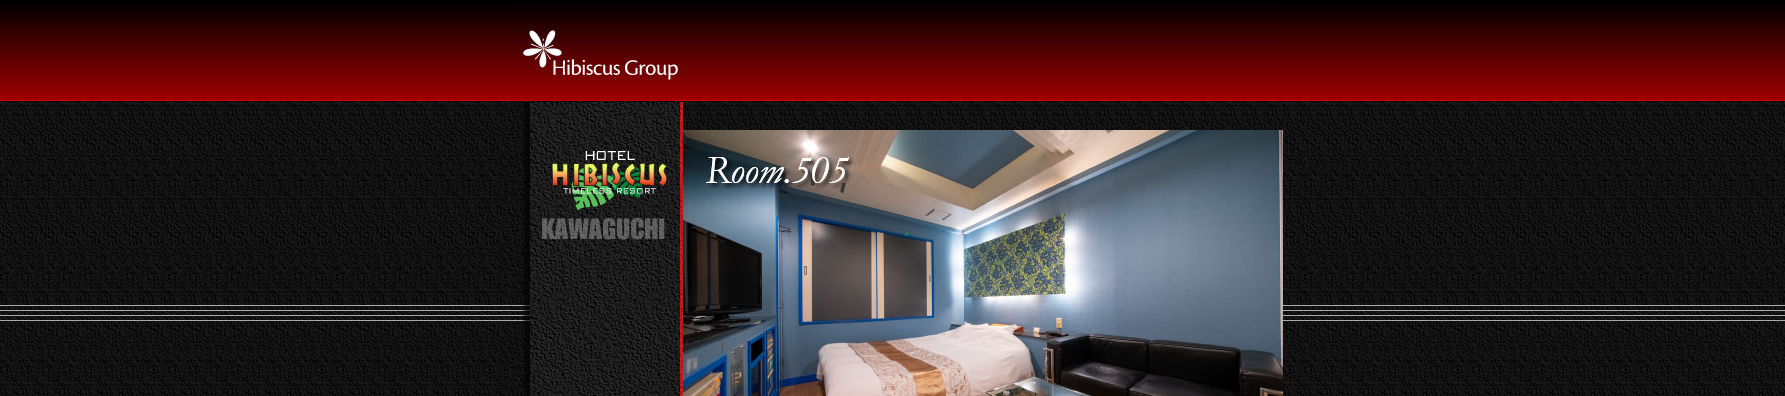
<svg xmlns="http://www.w3.org/2000/svg" xmlns:xlink="http://www.w3.org/1999/xlink" width="1785" height="396" viewBox="0 0 1785 396">
<rect width="100%" height="100%" fill="#ffffff"/>
<image xlink:href="image0.png" x="0" y="0" width="503" height="100"/>
<rect fill="#000000" x="503" y="0" width="780" height="4"/>
<image xlink:href="image1.png" x="503" y="4" width="780" height="96"/>
<image xlink:href="image2.png" x="1283" y="0" width="502" height="100"/>
<image xlink:href="image3.png" x="0" y="100" width="503" height="30"/>
<image xlink:href="image4.png" x="503" y="100" width="180" height="30"/>
<image xlink:href="image5.png" x="683" y="100" width="600" height="30"/>
<image xlink:href="image6.png" x="1283" y="100" width="502" height="30"/>
<image xlink:href="image7.png" x="0" y="130" width="503" height="266"/>
<image xlink:href="image8.png" x="503" y="130" width="180" height="266"/>
<image xlink:href="image9.png" x="551" y="153" width="119" height="59"/>
<image xlink:href="image10.png" x="683" y="130" width="600" height="266"/>
<image xlink:href="image11.png" x="1283" y="130" width="502" height="266"/>
</svg>
